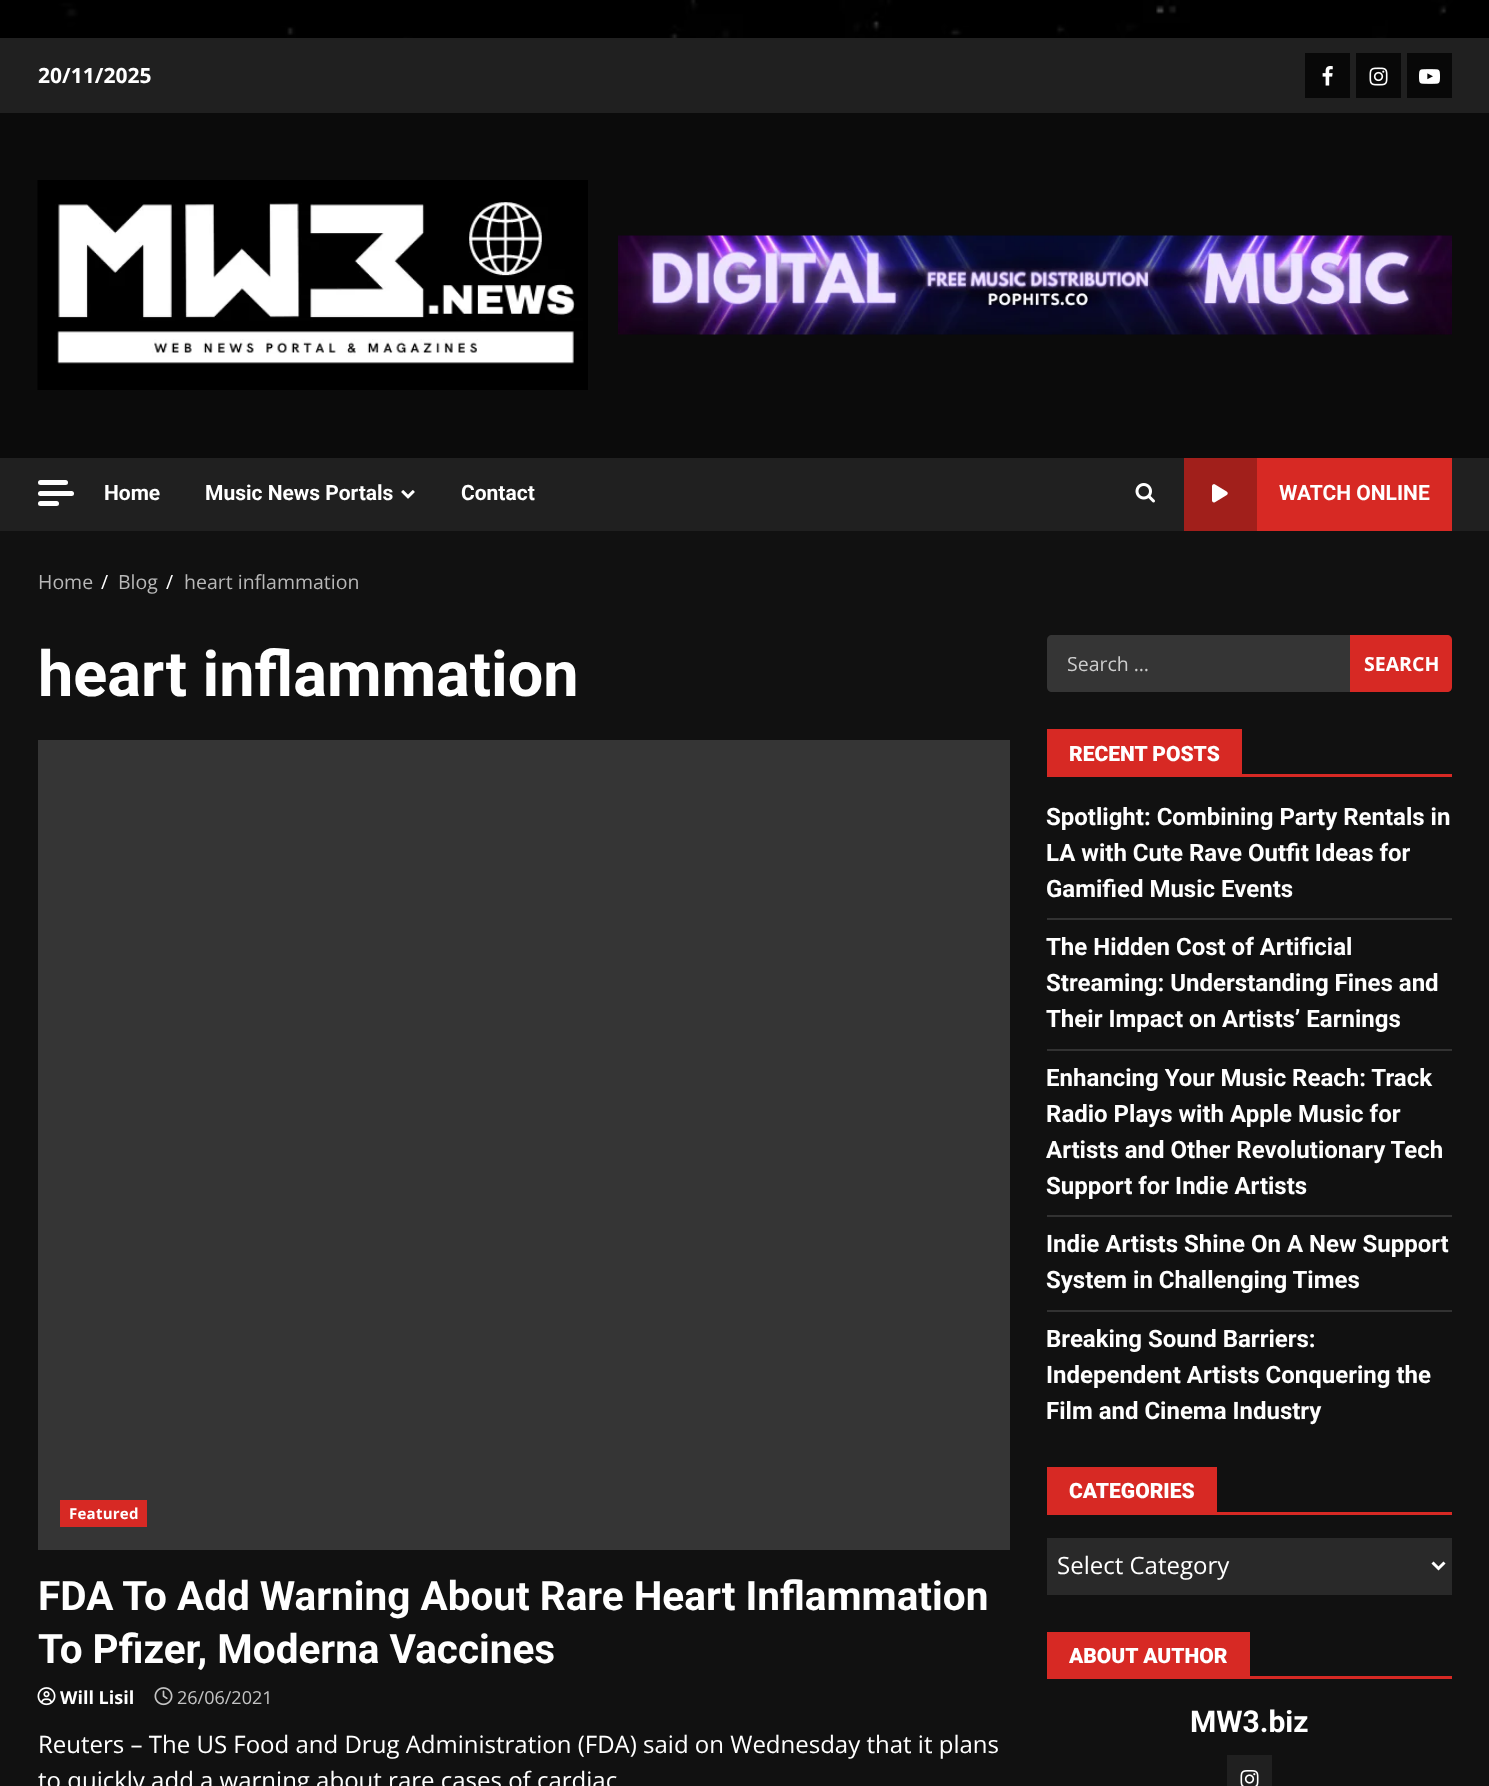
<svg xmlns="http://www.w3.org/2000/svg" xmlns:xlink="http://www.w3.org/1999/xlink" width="1489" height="1786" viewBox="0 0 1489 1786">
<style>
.cls-1{font:bold 21px Open Sans;fill:#ffffff}
.cls-2{font:bold 21px Roboto;fill:#ffffff}
.cls-3{font:19.5px Open Sans;fill:#b8b8b8}
.cls-4{font:19.5px Open Sans;fill:#ffffff}
.cls-5{font:bold 63px Roboto;fill:#ffffff}
.cls-6{font:bold 15px Open Sans;letter-spacing:0.25px;fill:#ffffff}
.cls-7{font:bold 40.5px Roboto;fill:#ffffff}
.cls-8{font:bold 18px Open Sans;fill:#ffffff}
.cls-9{font:18px Open Sans;fill:#c4c4c4}
.cls-10{font:24px Open Sans;fill:#ffffff}
.cls-11{font:19.5px Open Sans;fill:#cdcdcd}
.cls-12{font:bold 19.5px Open Sans;fill:#ffffff}
.cls-13{font:900 21px Roboto;fill:#ffffff}
.cls-14{font:bold 24px Roboto;fill:#ffffff}
.cls-15{font:bold 30px Roboto;fill:#ffffff}
</style>
<rect width="100%" height="100%" fill="#ffffff"/>
<image xlink:href="image0.png" x="0" y="0" width="1489" height="38"/>
<rect fill="#111111" x="0" y="531" width="1489" height="1255"/>
<rect fill="#202020" x="0" y="38" width="1489" height="75"/>
<rect fill="#080808" x="1305" y="53" width="45" height="45"/>
<image xlink:href="image1.png" x="1322" y="66" width="11" height="20"/>
<rect fill="#080808" x="1356" y="53" width="45" height="45"/>
<image xlink:href="image2.png" x="1369" y="67" width="19" height="19"/>
<rect fill="#080808" x="1407" y="53" width="45" height="45"/>
<image xlink:href="image3.png" x="1419" y="69" width="21" height="15"/>
<rect fill="#0b0b0b" x="0" y="113" width="1489" height="345"/>
<image xlink:href="image4.png" x="37" y="180" width="551" height="210"/>
<image xlink:href="image5.png" x="618" y="235" width="834" height="100"/>
<rect fill="#202020" x="0" y="458" width="1489" height="73"/>
<rect fill="#ffffff" x="38" y="480" width="30" height="5" rx="2.5"/>
<rect fill="#ffffff" x="38" y="491" width="36" height="5" rx="2.5"/>
<rect fill="#ffffff" x="38" y="501" width="21" height="5" rx="2.5"/>
<image xlink:href="image6.png" x="401" y="490" width="14" height="9"/>
<image xlink:href="image7.png" x="1135" y="483" width="20" height="20"/>
<rect fill="#d72924" x="1257" y="458" width="195" height="73"/>
<rect fill="#a11f1b" x="1184" y="458" width="73" height="73"/>
<image xlink:href="image8.png" x="1212" y="484" width="16" height="19"/>
<rect fill="#353535" x="38" y="740" width="972" height="810"/>
<rect fill="#d72924" x="60" y="1500" width="87" height="27"/>
<image xlink:href="image9.png" x="37" y="1687" width="19" height="19"/>
<image xlink:href="image10.png" x="154" y="1687" width="19" height="19"/>
<path fill="#353535" d="M1052 635H1350V692H1052C1049 692 1047 690 1047 687V640C1047 637 1049 635 1052 635Z"/>
<path fill="#d72924" d="M1350 635H1447C1450 635 1452 637 1452 640V687C1452 690 1450 692 1447 692H1350Z"/>
<rect fill="#d72924" x="1047" y="774" width="405" height="3"/>
<rect fill="#d72924" x="1047" y="729" width="195" height="45"/>
<rect fill="#323232" x="1047" y="918" width="405" height="2"/>
<rect fill="#323232" x="1047" y="1049" width="405" height="2"/>
<rect fill="#323232" x="1047" y="1215" width="405" height="2"/>
<rect fill="#323232" x="1047" y="1310" width="405" height="2"/>
<rect fill="#d72924" x="1047" y="1512" width="405" height="3"/>
<rect fill="#d72924" x="1047" y="1467" width="170" height="45"/>
<rect fill="#292929" x="1047" y="1538" width="405" height="57"/>
<path fill="none" stroke="#ffffff" stroke-width="3" d="M1432.5 1562.5L1438.5 1568.5L1444.5 1562.5"/>
<rect fill="#d72924" x="1047" y="1676" width="405" height="3"/>
<rect fill="#d72924" x="1047" y="1632" width="203" height="44"/>
<rect fill="#202020" x="1227" y="1755" width="45" height="31"/>
<image xlink:href="image11.png" x="1240" y="1770" width="19" height="16"/>
<text class="cls-1" x="38" y="83">20/11/2025</text>
<text class="cls-2" x="104" y="500">Home</text>
<text class="cls-2" x="205" y="500">Music News Portals</text>
<text class="cls-2" x="461" y="500">Contact</text>
<text class="cls-2" x="1279" y="500">WATCH ONLINE</text>
<text class="cls-3" x="38" y="589">Home</text>
<text class="cls-4" x="101" y="589">/</text>
<text class="cls-3" x="118" y="589">Blog</text>
<text class="cls-4" x="166" y="589">/</text>
<text class="cls-3" x="184" y="589">heart inflammation</text>
<text class="cls-5" x="38" y="696">heart inflammation</text>
<text class="cls-6" x="69" y="1519">Featured</text>
<text class="cls-7"><tspan x="38" y="1610">FDA To Add Warning About Rare Heart Inflammation</tspan><tspan x="38" y="1663">To Pfizer, Moderna Vaccines</tspan></text>
<text class="cls-8" x="60" y="1704">Will Lisil</text>
<text class="cls-9" x="177" y="1704">26/06/2021</text>
<text class="cls-10"><tspan x="38" y="1753">Reuters – The US Food and Drug Administration (FDA) said on Wednesday that it plans</tspan><tspan x="38" y="1789">to quickly add a warning about rare cases of cardiac</tspan></text>
<text class="cls-11" x="1067" y="671">Search …</text>
<text class="cls-12" x="1364" y="671">SEARCH</text>
<text class="cls-13" x="1069" y="761">RECENT POSTS</text>
<text class="cls-14"><tspan x="1046" y="825">Spotlight: Combining Party Rentals in</tspan><tspan x="1046" y="861">LA with Cute Rave Outfit Ideas for</tspan><tspan x="1046" y="897">Gamified Music Events</tspan></text>
<text class="cls-14"><tspan x="1046" y="955">The Hidden Cost of Artificial</tspan><tspan x="1046" y="991">Streaming: Understanding Fines and</tspan><tspan x="1046" y="1027">Their Impact on Artists’ Earnings</tspan></text>
<text class="cls-14"><tspan x="1046" y="1086">Enhancing Your Music Reach: Track</tspan><tspan x="1046" y="1122">Radio Plays with Apple Music for</tspan><tspan x="1046" y="1158">Artists and Other Revolutionary Tech</tspan><tspan x="1046" y="1194">Support for Indie Artists</tspan></text>
<text class="cls-14"><tspan x="1046" y="1252">Indie Artists Shine On A New Support</tspan><tspan x="1046" y="1288">System in Challenging Times</tspan></text>
<text class="cls-14"><tspan x="1046" y="1347">Breaking Sound Barriers:</tspan><tspan x="1046" y="1383">Independent Artists Conquering the</tspan><tspan x="1046" y="1419">Film and Cinema Industry</tspan></text>
<text class="cls-13" x="1069" y="1498">CATEGORIES</text>
<text class="cls-10" x="1057" y="1574">Select Category</text>
<text class="cls-13" x="1069" y="1663">ABOUT AUTHOR</text>
<text class="cls-15" x="1190" y="1732">MW3.biz</text>
</svg>
